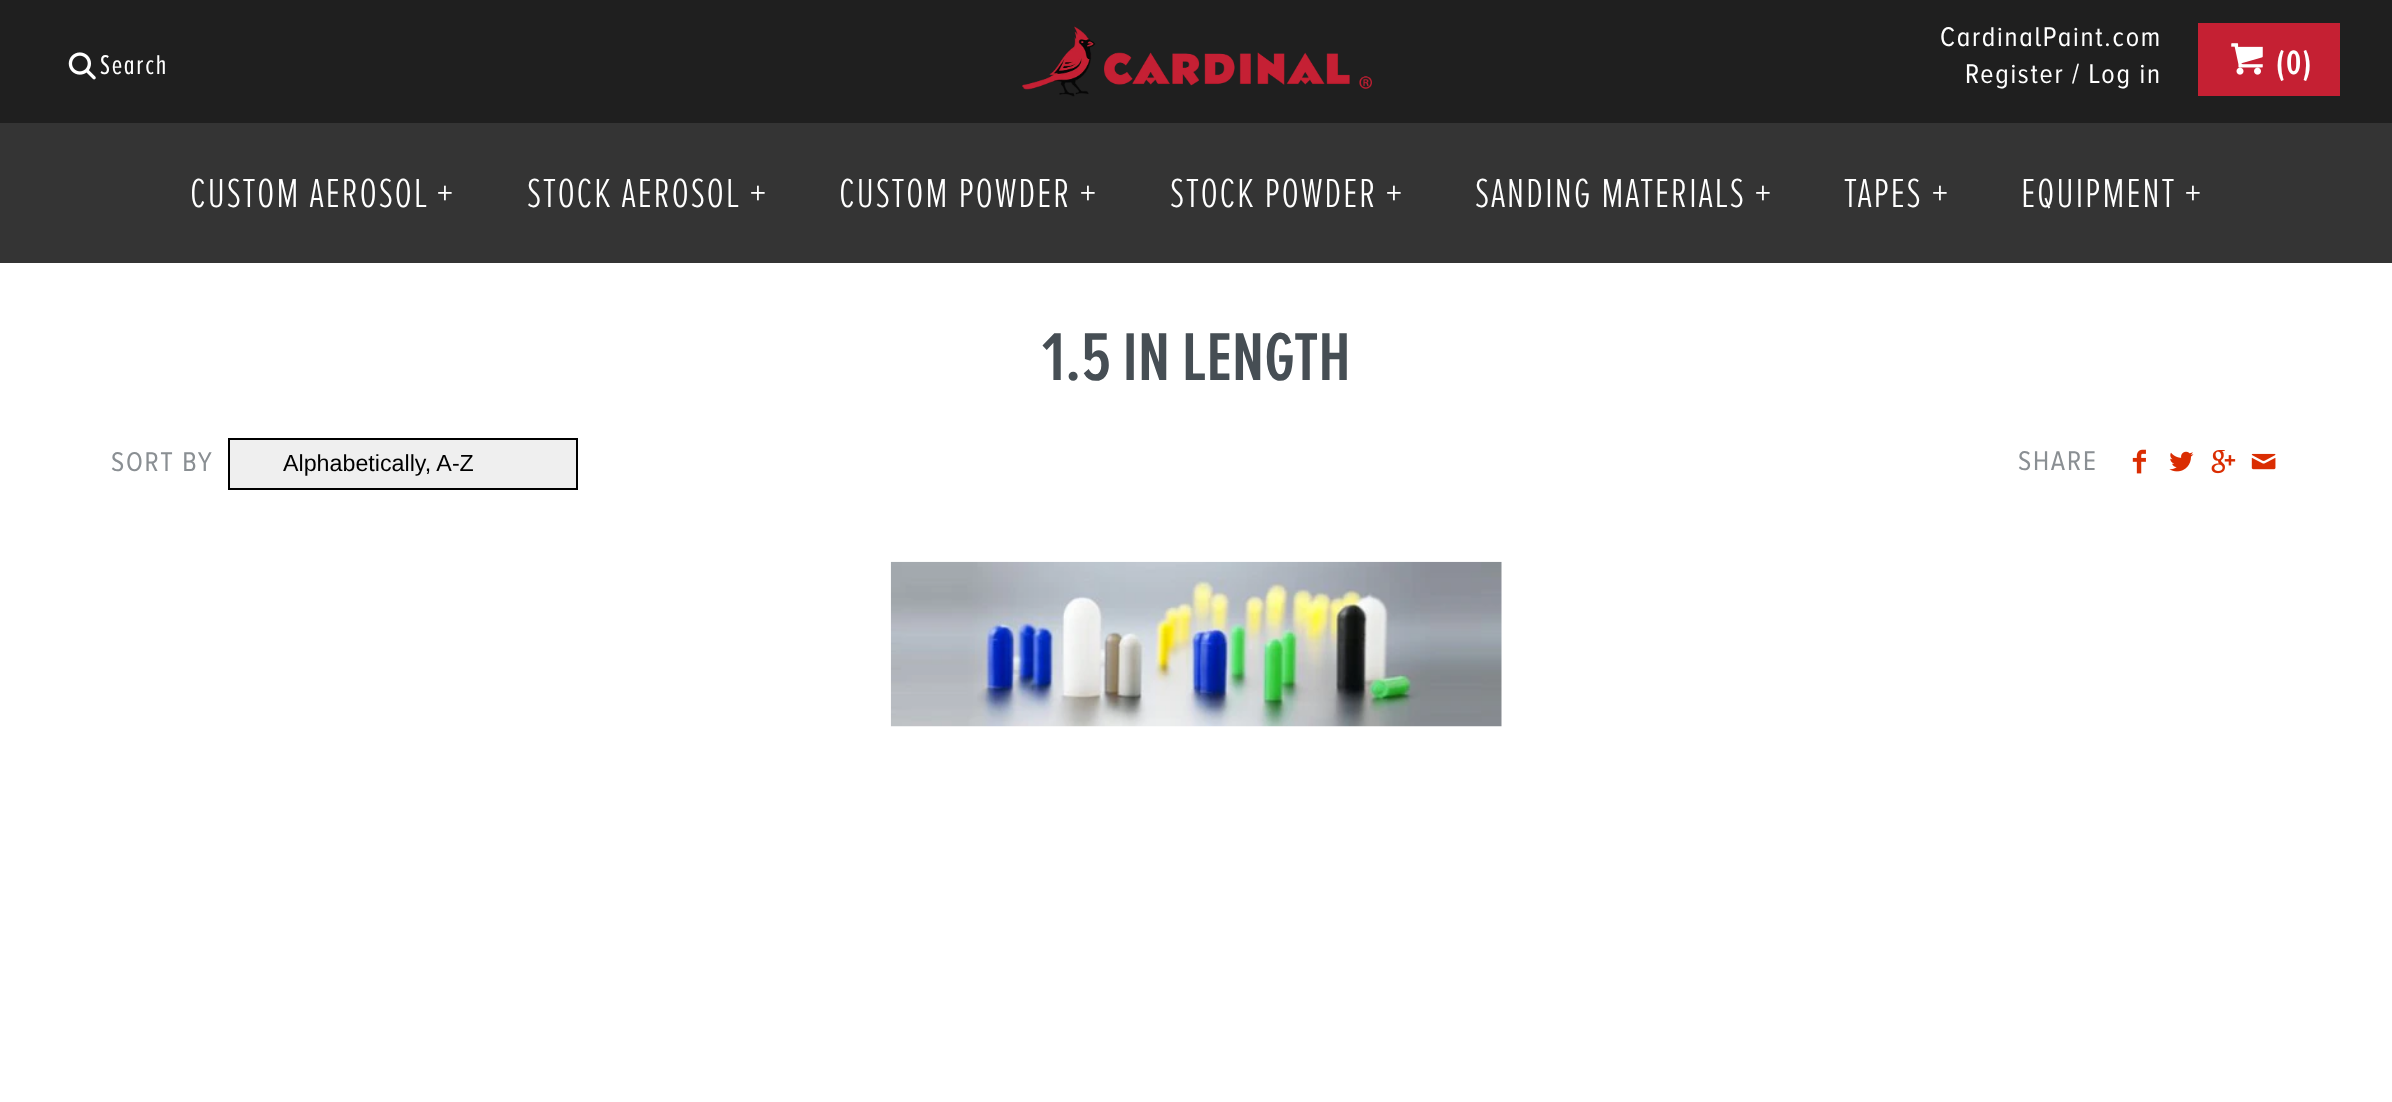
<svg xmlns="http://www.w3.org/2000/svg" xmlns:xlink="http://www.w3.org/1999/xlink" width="2392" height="1102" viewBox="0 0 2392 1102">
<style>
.cls-1{font:28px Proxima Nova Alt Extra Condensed;letter-spacing:1.75px;fill:#ffffff}
.cls-2{font:28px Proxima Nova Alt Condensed;letter-spacing:1.75px;fill:#ffffff}
.cls-3{font:600 35px Proxima Nova Alt Extra Condensed;letter-spacing:1.75px;fill:#ffffff}
.cls-4{font:300 42px Proxima Nova Alt Extra Condensed;letter-spacing:1.75px;fill:#ffffff}
.cls-5{font:600 70px Proxima Nova Alt Extra Condensed;fill:#464e54}
.cls-6{font:28px Proxima Nova Alt Condensed;letter-spacing:1.75px;fill:#8a8f93}
.cls-7{font:23.25px Liberation Sans;fill:#000000}
</style>
<rect width="100%" height="100%" fill="#343434"/>
<rect fill="#1f1f1f" x="0" y="0" width="2392" height="123"/>
<image xlink:href="image0.png" x="1022" y="26" width="350" height="71"/>
<image xlink:href="image1.png" x="68" y="52" width="28" height="28"/>
<rect fill="#c52033" x="2198" y="23" width="142" height="73"/>
<image xlink:href="image2.png" x="2231" y="43" width="32" height="32"/>
<rect fill="#ffffff" x="0" y="263" width="2392" height="839"/>
<rect fill="#efefef" stroke="#000000" stroke-width="2" x="229" y="439" width="348" height="50"/>
<image xlink:href="image3.png" x="2132" y="449" width="14" height="25"/>
<image xlink:href="image4.png" x="2169" y="451" width="25" height="21"/>
<image xlink:href="image5.png" x="2211" y="450" width="25" height="24"/>
<image xlink:href="image6.png" x="2251" y="453" width="25" height="17"/>
<image xlink:href="image7.png" x="890" y="561" width="612" height="166"/>
<text class="cls-1" x="100" y="74">Search</text>
<text class="cls-2" x="1940" y="46">CardinalPaint.com</text>
<text class="cls-2" x="1965" y="83">Register / Log in</text>
<text class="cls-3" x="2276" y="74">(0)</text>
<text class="cls-4" x="190" y="207">CUSTOM AEROSOL</text>
<text class="cls-4" x="437" y="207">+</text>
<text class="cls-4" x="527" y="207">STOCK AEROSOL</text>
<text class="cls-4" x="750" y="207">+</text>
<text class="cls-4" x="839" y="207">CUSTOM POWDER</text>
<text class="cls-4" x="1080" y="207">+</text>
<text class="cls-4" x="1170" y="207">STOCK POWDER</text>
<text class="cls-4" x="1386" y="207">+</text>
<text class="cls-4" x="1475" y="207">SANDING MATERIALS</text>
<text class="cls-4" x="1755" y="207">+</text>
<text class="cls-4" x="1844" y="207">TAPES</text>
<text class="cls-4" x="1932" y="207">+</text>
<text class="cls-4" x="2021" y="207">EQUIPMENT</text>
<text class="cls-4" x="2185" y="207">+</text>
<text class="cls-5" x="1042" y="380">1.5 IN LENGTH</text>
<text class="cls-6" x="111" y="471">SORT BY</text>
<text class="cls-7" x="283" y="471">Alphabetically, A-Z</text>
<text class="cls-6" x="2018" y="470">SHARE</text>
</svg>
